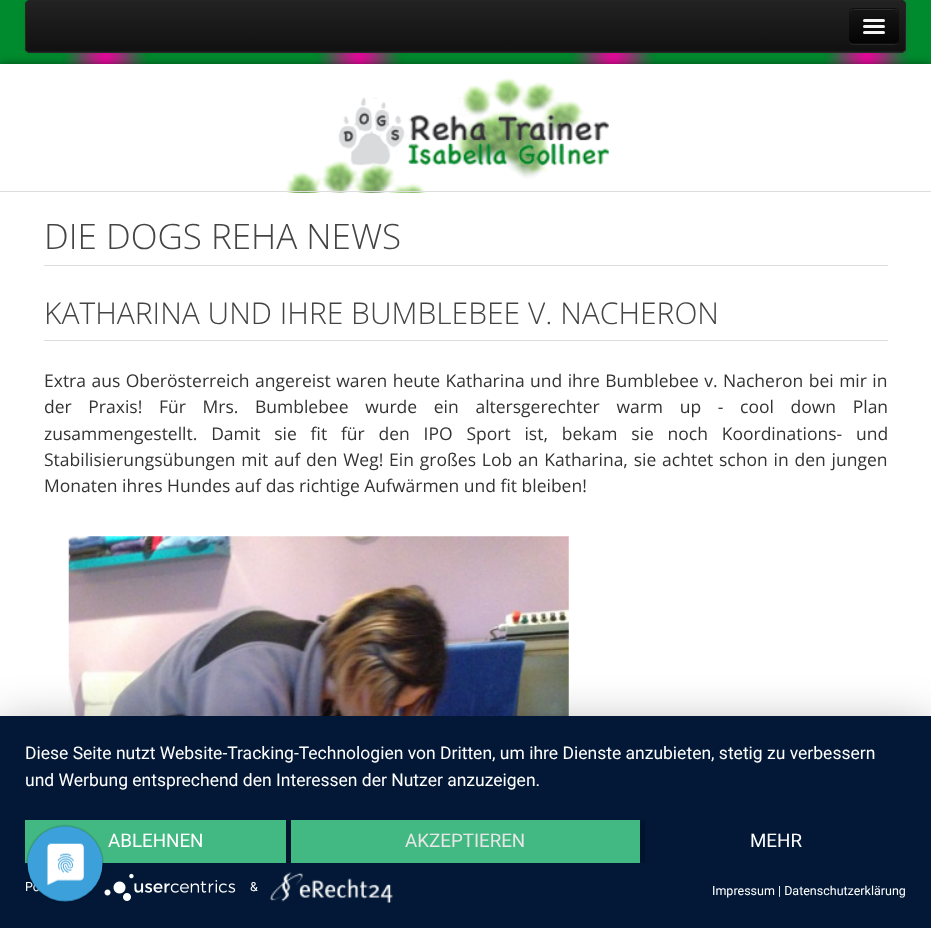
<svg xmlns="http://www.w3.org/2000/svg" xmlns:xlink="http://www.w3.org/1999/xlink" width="931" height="928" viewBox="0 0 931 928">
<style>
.cls-1{font:300 35px Open Sans;fill:#444444}
.cls-2{font:300 30px Open Sans;fill:#444444}
.cls-3{font:17.5px Open Sans;fill:#333333}
.cls-4{font:17.5px Roboto;fill:#ffffff}
.cls-5{font:18.75px Roboto;fill:#ffffff}
.cls-6{font:18.75px Roboto;fill:#e6e6e6}
.cls-7{font:12.5px Roboto;fill:#ffffff}
</style>
<defs>
<clipPath id="clip1"><rect x="25" y="0" width="881" height="53" rx="5"/></clipPath>
<linearGradient id="g1" gradientUnits="userSpaceOnUse" x1="466" y1="1.2" x2="466" y2="51"><stop offset="0" stop-color="#222222"/><stop offset="1" stop-color="#111111"/></linearGradient>
<clipPath id="clip2"><rect x="849" y="8" width="50" height="36" rx="5"/></clipPath>
<linearGradient id="g2" gradientUnits="userSpaceOnUse" x1="874" y1="9" x2="874" y2="43"><stop offset="0" stop-color="#151515"/><stop offset="1" stop-color="#040404"/></linearGradient>
<clipPath id="clip3"><rect x="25" y="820" width="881" height="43"/></clipPath>
</defs>
<rect width="100%" height="100%" fill="#ffffff"/>
<image xlink:href="image0.png" x="0" y="0" width="931" height="64"/>
<rect fill="#000000" fill-opacity="0.07" filter="blur(2.5px)" x="25" y="1" width="881" height="53" rx="5"/>
<rect fill="#1b1b1b" x="25" y="0" width="881" height="53" rx="5"/>
<g clip-path="url(#clip1)">
<rect fill="url(#g1)" x="25" y="1" width="881" height="50"/>
</g>
<rect fill="none" stroke="#252525" x="25.5" y="0.5" width="880" height="52" rx="4.5"/>
<path fill="#252525" d="M849 40C849 43 851 45 854 45H881C898 45 899 48 899 31V12V39C899 42 897 44 894 44H854C852 44 850 42 849 40Z"/>
<rect fill="#0e0e0e" x="849" y="8" width="50" height="36" rx="5"/>
<g clip-path="url(#clip2)">
<rect fill="url(#g2)" x="849" y="9" width="50" height="34"/>
</g>
<path fill="#2c2c2c" d="M854 10H894C896 10 898 12 898 14C898 8 892 9 887 9H861C856 9 850 8 850 14C850 12 852 10 854 10Z"/>
<path fill="#0b0b0b" d="M863 21C862.5 23.5 867 23 867.5 23H880.5C881 23 886.5 23.5 885 20.5L884 21Z"/>
<rect fill="#f5f5f5" x="863" y="19" width="22" height="3" rx="1.5"/>
<path fill="#080808" d="M863 27.5C862.5 29.5 866.5 29 867.5 29H880.5C881 29 886 29.5 885 27L884 27.5C882 27.5 863.5 27.5 863 27.5Z"/>
<rect fill="#f5f5f5" x="863" y="25" width="22" height="3" rx="1.5"/>
<rect fill="#f5f5f5" x="863" y="31" width="22" height="3" rx="1.5"/>
<rect fill="#000000" fill-opacity="0.47" filter="blur(4px)" x="0" y="64" width="931" height="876"/>
<rect fill="#ffffff" x="0" y="64" width="931" height="652"/>
<image xlink:href="image1.png" x="284" y="78" width="301" height="115"/>
<rect fill="#dddddd" x="0" y="191" width="931" height="1"/>
<image xlink:href="image2.png" x="338" y="97" width="271" height="69"/>
<rect fill="#dddddd" x="44" y="265" width="844" height="1"/>
<rect fill="#dddddd" x="44" y="340" width="844" height="1"/>
<image xlink:href="image3.png" x="68" y="536" width="501" height="180"/>
<rect fill="#000000" fill-opacity="0.3" filter="blur(22.5px)" x="0" y="724" width="931" height="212"/>
<rect fill="#021836" x="0" y="716" width="931" height="212"/>
<image xlink:href="image5.png" x="270" y="872" width="123" height="31"/>
<g clip-path="url(#clip3)">
<rect fill="#000000" fill-opacity="0.4" filter="blur(2.5px)" x="25" y="821" width="261" height="43"/>
</g>
<rect fill="#42b983" x="25" y="820" width="261" height="43"/>
<g clip-path="url(#clip3)">
<rect fill="#000000" fill-opacity="0.4" filter="blur(2.5px)" x="291" y="821" width="349" height="43"/>
</g>
<rect fill="#42b983" x="291" y="820" width="349" height="43"/>
<g clip-path="url(#clip3)">
<rect fill="#000000" fill-opacity="0.4" filter="blur(2.5px)" x="645" y="821" width="261" height="43"/>
</g>
<rect fill="#021836" x="645" y="820" width="261" height="43"/>
<image xlink:href="image4.png" x="104" y="873" width="132" height="28"/>
<text class="cls-1" x="44" y="249">DIE DOGS REHA NEWS</text>
<text class="cls-2" x="44" y="324">KATHARINA UND IHRE BUMBLEBEE V. NACHERON</text>
<text class="cls-3"><tspan x="44" y="387" word-spacing="0.9">Extra aus Oberösterreich angereist waren heute Katharina und ihre Bumblebee v. Nacheron bei mir in</tspan><tspan x="44" y="413" word-spacing="12.1">der Praxis! Für Mrs. Bumblebee wurde ein altersgerechter warm up - cool down Plan</tspan><tspan x="44" y="440" word-spacing="9.25">zusammengestellt. Damit sie fit für den IPO Sport ist, bekam sie noch Koordinations- und</tspan><tspan x="44" y="466" word-spacing="1.25">Stabilisierungsübungen mit auf den Weg! Ein großes Lob an Katharina, sie achtet schon in den jungen</tspan><tspan x="44" y="492">Monaten ihres Hundes auf das richtige Aufwärmen und fit bleiben!</tspan></text>
<text class="cls-4"><tspan x="25" y="759">Diese Seite nutzt Website-Tracking-Technologien von Dritten, um ihre Dienste anzubieten, stetig zu verbessern</tspan><tspan x="25" y="786">und Werbung entsprechend den Interessen der Nutzer anzuzeigen.</tspan></text>
<text class="cls-5" x="108" y="847">ABLEHNEN</text>
<text class="cls-6" x="405" y="847">AKZEPTIEREN</text>
<text class="cls-5" x="750" y="847">MEHR</text>
<text class="cls-7" x="25" y="891">Po</text>
<text class="cls-7" x="250" y="891">&amp;</text>
<text class="cls-7" x="712" y="895">Impressum | Datenschutzerklärung</text>
<image xlink:href="image6.png" x="26" y="824" width="78" height="79"/>
</svg>
